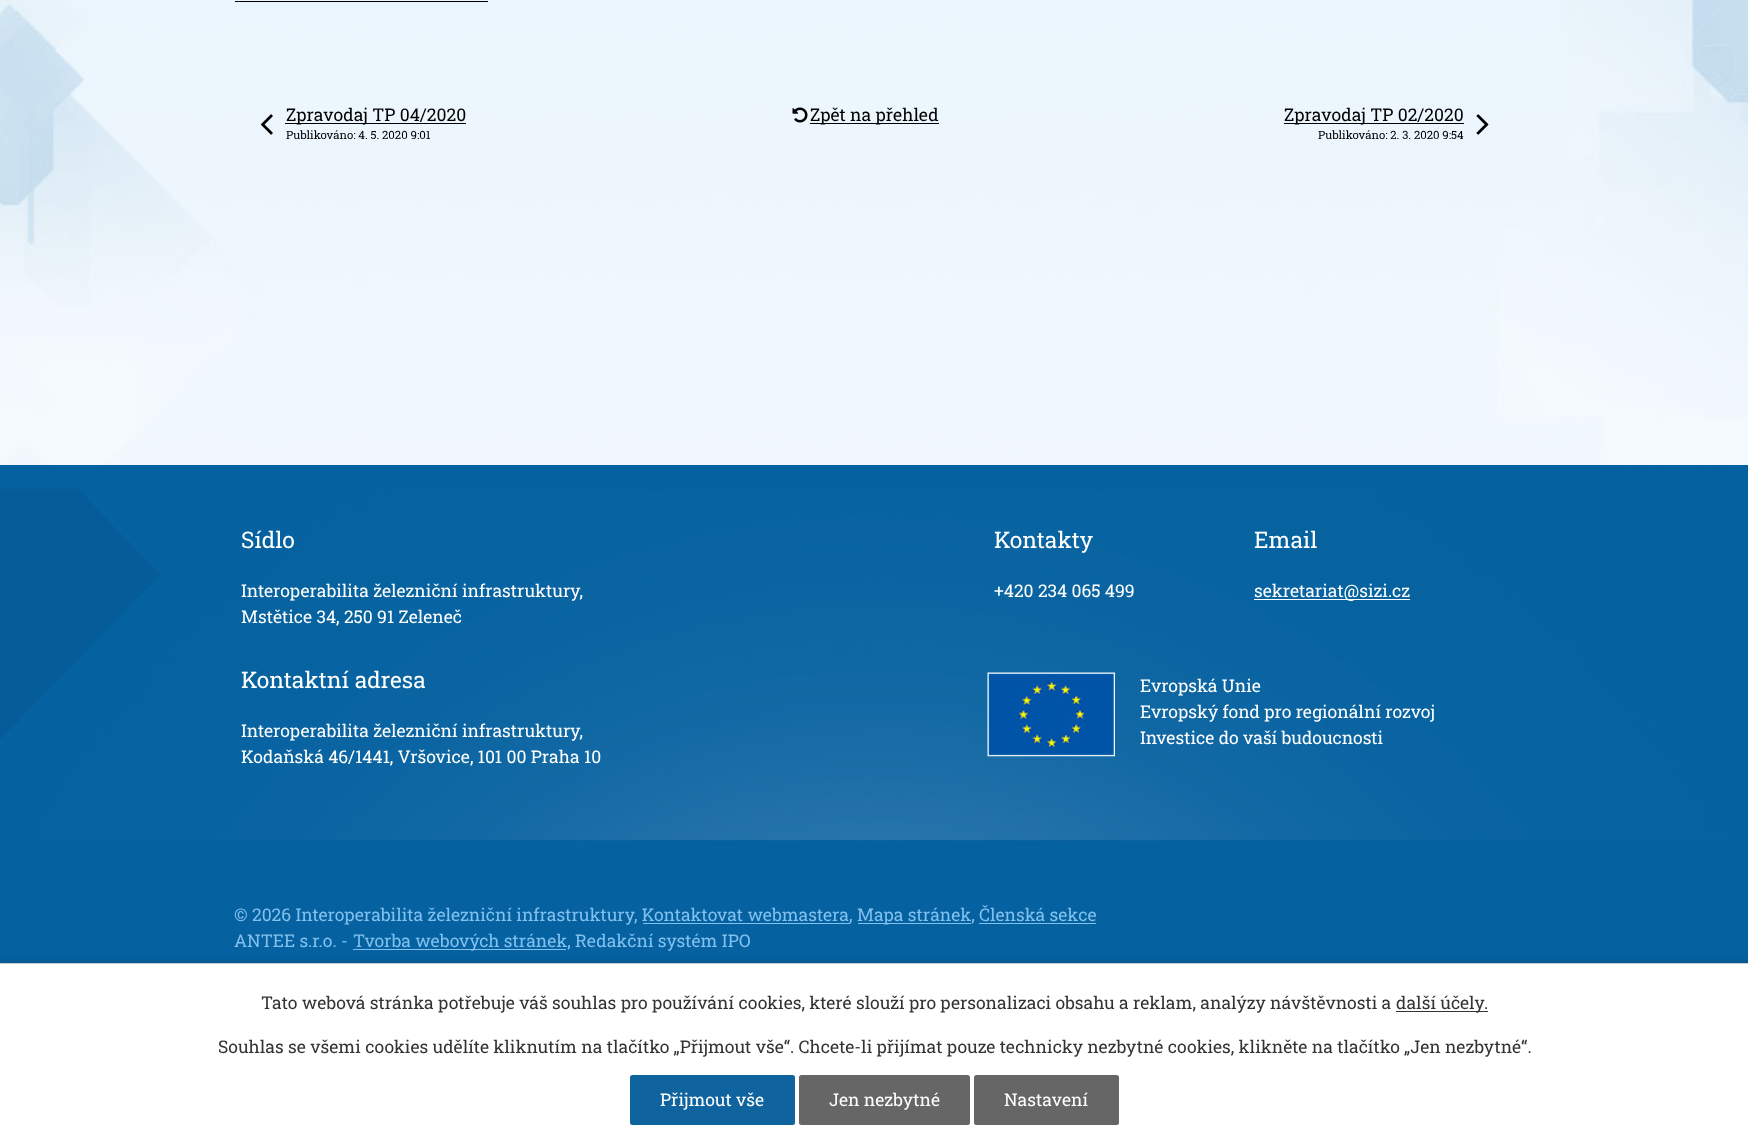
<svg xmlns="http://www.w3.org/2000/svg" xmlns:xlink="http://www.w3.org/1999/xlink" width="1748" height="1137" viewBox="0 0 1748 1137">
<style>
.cls-1{font:17.5px Roboto Slab;fill:#000000}
.cls-2{font:11.4px Roboto Slab;fill:#000000}
.cls-3{font:22.75px Roboto Slab;fill:#ffffff}
.cls-4{font:17.5px Roboto Slab;fill:#ffffff}
.cls-5{font:17.5px Roboto Slab;fill:#81c1ee}
.cls-6{font:17.5px Roboto Slab;fill:#333333}
</style>
<rect width="100%" height="100%" fill="#ffffff"/>
<image xlink:href="image0.png" x="0" y="0" width="1748" height="465"/>
<rect fill="#000000" x="235" y="1" width="253" height="1"/>
<image xlink:href="image1.png" x="261" y="114" width="12" height="21"/>
<rect fill="#000000" x="285" y="123" width="181" height="1"/>
<image xlink:href="image2.png" x="792" y="107" width="16" height="16"/>
<rect fill="#000000" x="810" y="123" width="129" height="1"/>
<rect fill="#000000" x="1284" y="123" width="180" height="1"/>
<image xlink:href="image3.png" x="1476" y="114" width="13" height="21"/>
<image xlink:href="image4.png" x="0" y="465" width="1748" height="498"/>
<rect fill="#ffffff" x="1254" y="599" width="156" height="1"/>
<image xlink:href="image5.png" x="987" y="672" width="128" height="85"/>
<rect fill="#81c1ee" x="858" y="923" width="113" height="1"/>
<rect fill="#81c1ee" x="979" y="923" width="117" height="1"/>
<rect fill="#81c1ee" x="643" y="923" width="207" height="1"/>
<rect fill="#81c1ee" x="353" y="949" width="213" height="1"/>
<rect fill="#000000" fill-opacity="0.2" filter="blur(3px)" x="0" y="963" width="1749" height="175"/>
<rect fill="#ffffff" x="0" y="964" width="1748" height="173"/>
<rect fill="#cccccc" x="0" y="963" width="1748" height="1"/>
<rect fill="#333333" x="1396" y="1011" width="92" height="1"/>
<rect fill="#0f639e" x="630" y="1075" width="165" height="50" rx="2.5"/>
<rect fill="#666666" x="799" y="1075" width="171" height="50" rx="2.5"/>
<rect fill="#666666" x="974" y="1075" width="145" height="50" rx="2.5"/>
<text class="cls-1" x="286" y="121">Zpravodaj TP 04/2020</text>
<text class="cls-2" x="286" y="139">Publikováno: 4. 5. 2020 9:01</text>
<text class="cls-1" x="810" y="121">Zpět na přehled</text>
<text class="cls-1" x="1284" y="121">Zpravodaj TP 02/2020</text>
<text class="cls-2" x="1318" y="139">Publikováno: 2. 3. 2020 9:54</text>
<text class="cls-3" x="241" y="548">Sídlo</text>
<text class="cls-4"><tspan x="241" y="597">Interoperabilita železniční infrastruktury,</tspan><tspan x="241" y="623">Mstětice 34, 250 91 Zeleneč</tspan></text>
<text class="cls-3" x="241" y="688">Kontaktní adresa</text>
<text class="cls-4"><tspan x="241" y="737">Interoperabilita železniční infrastruktury,</tspan><tspan x="241" y="763">Kodaňská 46/1441, Vršovice, 101 00 Praha 10</tspan></text>
<text class="cls-3" x="994" y="548">Kontakty</text>
<text class="cls-4" x="994" y="597">+420 234 065 499</text>
<text class="cls-3" x="1254" y="548">Email</text>
<text class="cls-4" x="1254" y="597">sekretariat@sizi.cz</text>
<text class="cls-4"><tspan x="1140" y="692">Evropská Unie</tspan><tspan x="1140" y="718">Evropský fond pro regionální rozvoj</tspan><tspan x="1140" y="744">Investice do vaší budoucnosti</tspan></text>
<text class="cls-5" x="234" y="921">© 2026 Interoperabilita železniční infrastruktury, Kontaktovat webmastera</text>
<text class="cls-5" x="849" y="921">,</text>
<text class="cls-5" x="857" y="921">Mapa stránek, Členská sekce</text>
<text class="cls-5" x="234" y="947">ANTEE s.r.o. -</text>
<text class="cls-5" x="353" y="947">Tvorba webových stránek, Redakční systém IPO</text>
<text class="cls-6" x="261" y="1009">Tato webová stránka potřebuje váš souhlas pro používání cookies, které slouží pro personalizaci obsahu a reklam, analýzy návštěvnosti a</text>
<text class="cls-6" x="1396" y="1009">další účely.</text>
<text class="cls-6" x="218" y="1053">Souhlas se všemi cookies udělíte kliknutím na tlačítko „Přijmout vše“. Chcete-li přijímat pouze technicky nezbytné cookies, klikněte na tlačítko „Jen nezbytné“.</text>
<text class="cls-4" x="660" y="1106">Přijmout vše</text>
<text class="cls-4" x="829" y="1106">Jen nezbytné</text>
<text class="cls-4" x="1004" y="1106">Nastavení</text>
</svg>
